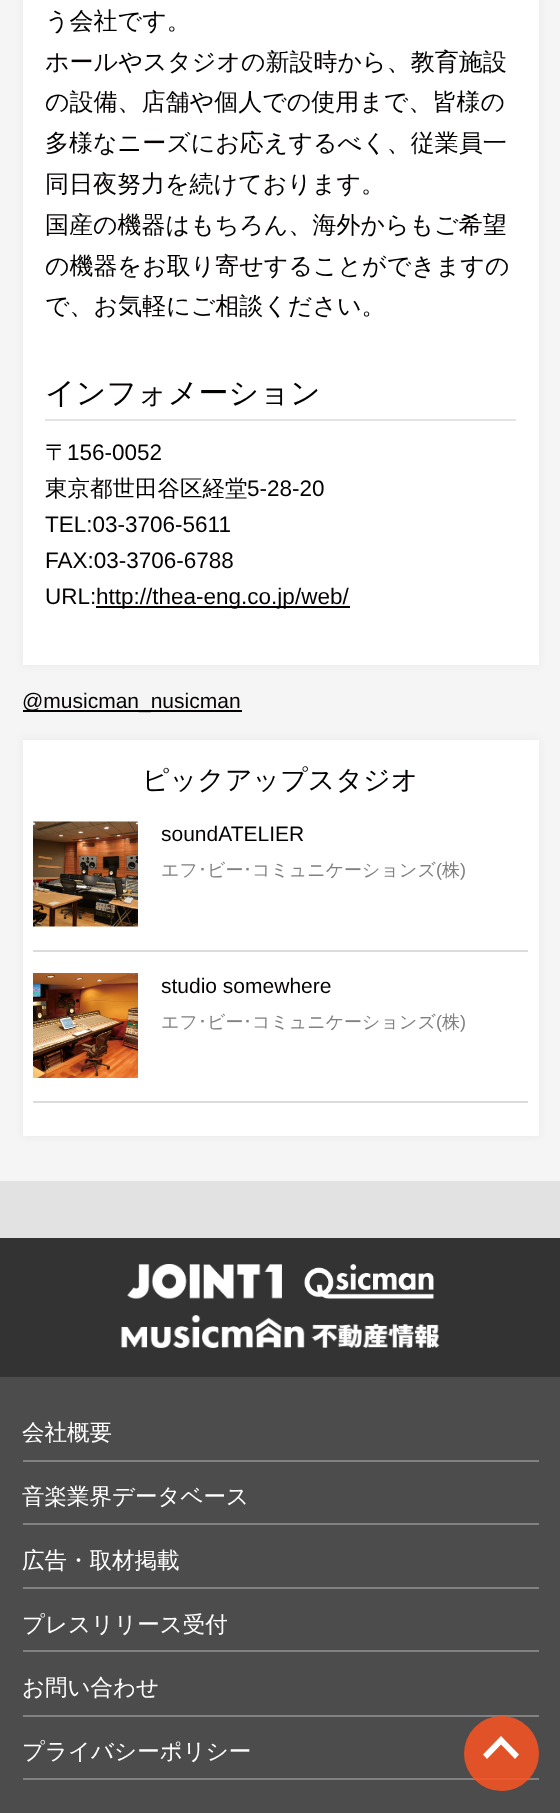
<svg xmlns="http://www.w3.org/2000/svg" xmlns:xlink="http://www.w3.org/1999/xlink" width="560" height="1813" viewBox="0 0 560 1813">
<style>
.cls-1{font:500 24px WenQuanYi Zen Hei;fill:#040000}
.cls-2{font:500 30px WenQuanYi Zen Hei;fill:#040000}
.cls-3{font:500 22.5px WenQuanYi Zen Hei;fill:#040000}
.cls-4{font:22.5px Liberation Sans;fill:#040000}
.cls-5{font:21px Liberation Sans;fill:#040000}
.cls-6{font:500 27px WenQuanYi Zen Hei;fill:#040000}
.cls-7{font:500 18px WenQuanYi Zen Hei;fill:#818181}
.cls-8{font:18px IPAPGothic;fill:#818181}
.cls-9{font:18px Liberation Sans;fill:#818181}
.cls-10{font:500 22.5px WenQuanYi Zen Hei;fill:#ffffff}
</style>
<rect width="100%" height="100%" fill="#f5f5f5"/>
<rect fill="#dedede" fill-opacity="0.5" filter="blur(4px)" x="23" y="-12" width="516" height="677"/>
<rect fill="#ffffff" x="23" y="0" width="516" height="665"/>
<rect fill="#e3e3e3" x="45" y="419" width="471" height="2"/>
<rect fill="#040000" x="96" y="606" width="254" height="2"/>
<rect fill="#040000" x="23" y="710" width="219" height="2"/>
<rect fill="#dedede" fill-opacity="0.5" filter="blur(4px)" x="23" y="740" width="516" height="396"/>
<rect fill="#ffffff" x="23" y="740" width="516" height="396"/>
<rect fill="#dbdbdb" x="33" y="950" width="495" height="2"/>
<image xlink:href="image0.png" x="33" y="821" width="105" height="106"/>
<rect fill="#dbdbdb" x="33" y="1101" width="495" height="2"/>
<image xlink:href="image1.png" x="33" y="973" width="105" height="105"/>
<rect fill="#e2e2e2" x="0" y="1181" width="560" height="57"/>
<rect fill="#333333" x="0" y="1238" width="560" height="139"/>
<image xlink:href="image2.png" x="127" y="1264" width="155" height="35"/>
<image xlink:href="image3.png" x="304" y="1264" width="130" height="35"/>
<image xlink:href="image4.png" x="121" y="1315" width="319" height="33"/>
<rect fill="#4c4c4c" x="0" y="1377" width="560" height="436"/>
<rect fill="#818181" x="23" y="1460" width="516" height="2"/>
<rect fill="#818181" x="23" y="1523" width="516" height="2"/>
<rect fill="#818181" x="23" y="1587" width="516" height="2"/>
<rect fill="#818181" x="23" y="1650" width="516" height="2"/>
<rect fill="#818181" x="23" y="1715" width="516" height="2"/>
<rect fill="#818181" x="23" y="1778" width="516" height="2"/>
<circle fill="#fb5322" fill-opacity="0.85" cx="501.5" cy="1753.5" r="37.5"/>
<path fill="#ffffff" d="M483 1754.5L487 1759L501 1744.5L515 1759L519 1754.5L501 1736Z"/>
<text class="cls-1"><tspan x="45" y="29">う会社です。</tspan><tspan x="45" y="70">ホールやスタジオの新設時から、教育施設</tspan><tspan x="45" y="110">の設備、店舗や個人での使用まで、皆様の</tspan><tspan x="45" y="151">多様なニーズにお応えするべく、従業員一</tspan><tspan x="45" y="192">同日夜努力を続けております。</tspan><tspan x="45" y="233">国産の機器はもちろん、海外からもご希望</tspan><tspan x="45" y="274">の機器をお取り寄せすることができますの</tspan><tspan x="45" y="314">で、お気軽にご相談ください。</tspan></text>
<text class="cls-2" x="45" y="403">インフォメーション</text>
<text class="cls-3" x="45" y="460">〒</text>
<text class="cls-4" x="67" y="460">156-0052</text>
<text class="cls-3" x="45" y="496">東京都世田谷区経堂</text>
<text class="cls-4" x="247" y="496">5-28-20</text>
<text class="cls-4"><tspan x="45" y="532">TEL:03-3706-5611</tspan><tspan x="45" y="568">FAX:03-3706-6788</tspan><tspan x="45" y="604">URL:</tspan></text>
<text class="cls-4" x="96" y="604">http://thea-eng.co.jp/web/</text>
<text class="cls-5" x="22" y="708">@musicman_nusicman</text>
<text class="cls-6" x="142" y="789">ピックアップスタジオ</text>
<text class="cls-5" x="161" y="841">soundATELIER</text>
<text class="cls-7" x="161" y="876">エフ</text>
<text class="cls-8" x="198" y="876">･</text>
<text class="cls-7" x="207" y="876">ビー</text>
<text class="cls-8" x="243" y="876">･</text>
<text class="cls-7" x="252" y="876">コミュニケーションズ</text>
<text class="cls-9" x="436" y="876">(</text>
<text class="cls-7" x="442" y="876">株</text>
<text class="cls-9" x="460" y="876">)</text>
<text class="cls-5" x="161" y="993">studio somewhere</text>
<text class="cls-7" x="161" y="1028">エフ</text>
<text class="cls-8" x="198" y="1028">･</text>
<text class="cls-7" x="207" y="1028">ビー</text>
<text class="cls-8" x="243" y="1028">･</text>
<text class="cls-7" x="252" y="1028">コミュニケーションズ</text>
<text class="cls-9" x="436" y="1028">(</text>
<text class="cls-7" x="442" y="1028">株</text>
<text class="cls-9" x="460" y="1028">)</text>
<text class="cls-10" x="22" y="1440">会社概要</text>
<text class="cls-10" x="22" y="1504">音楽業界データベース</text>
<text class="cls-10" x="22" y="1568">広告・取材掲載</text>
<text class="cls-10" x="22" y="1632">プレスリリース受付</text>
<text class="cls-10" x="22" y="1695">お問い合わせ</text>
<text class="cls-10" x="22" y="1759">プライバシーポリシー</text>
</svg>
